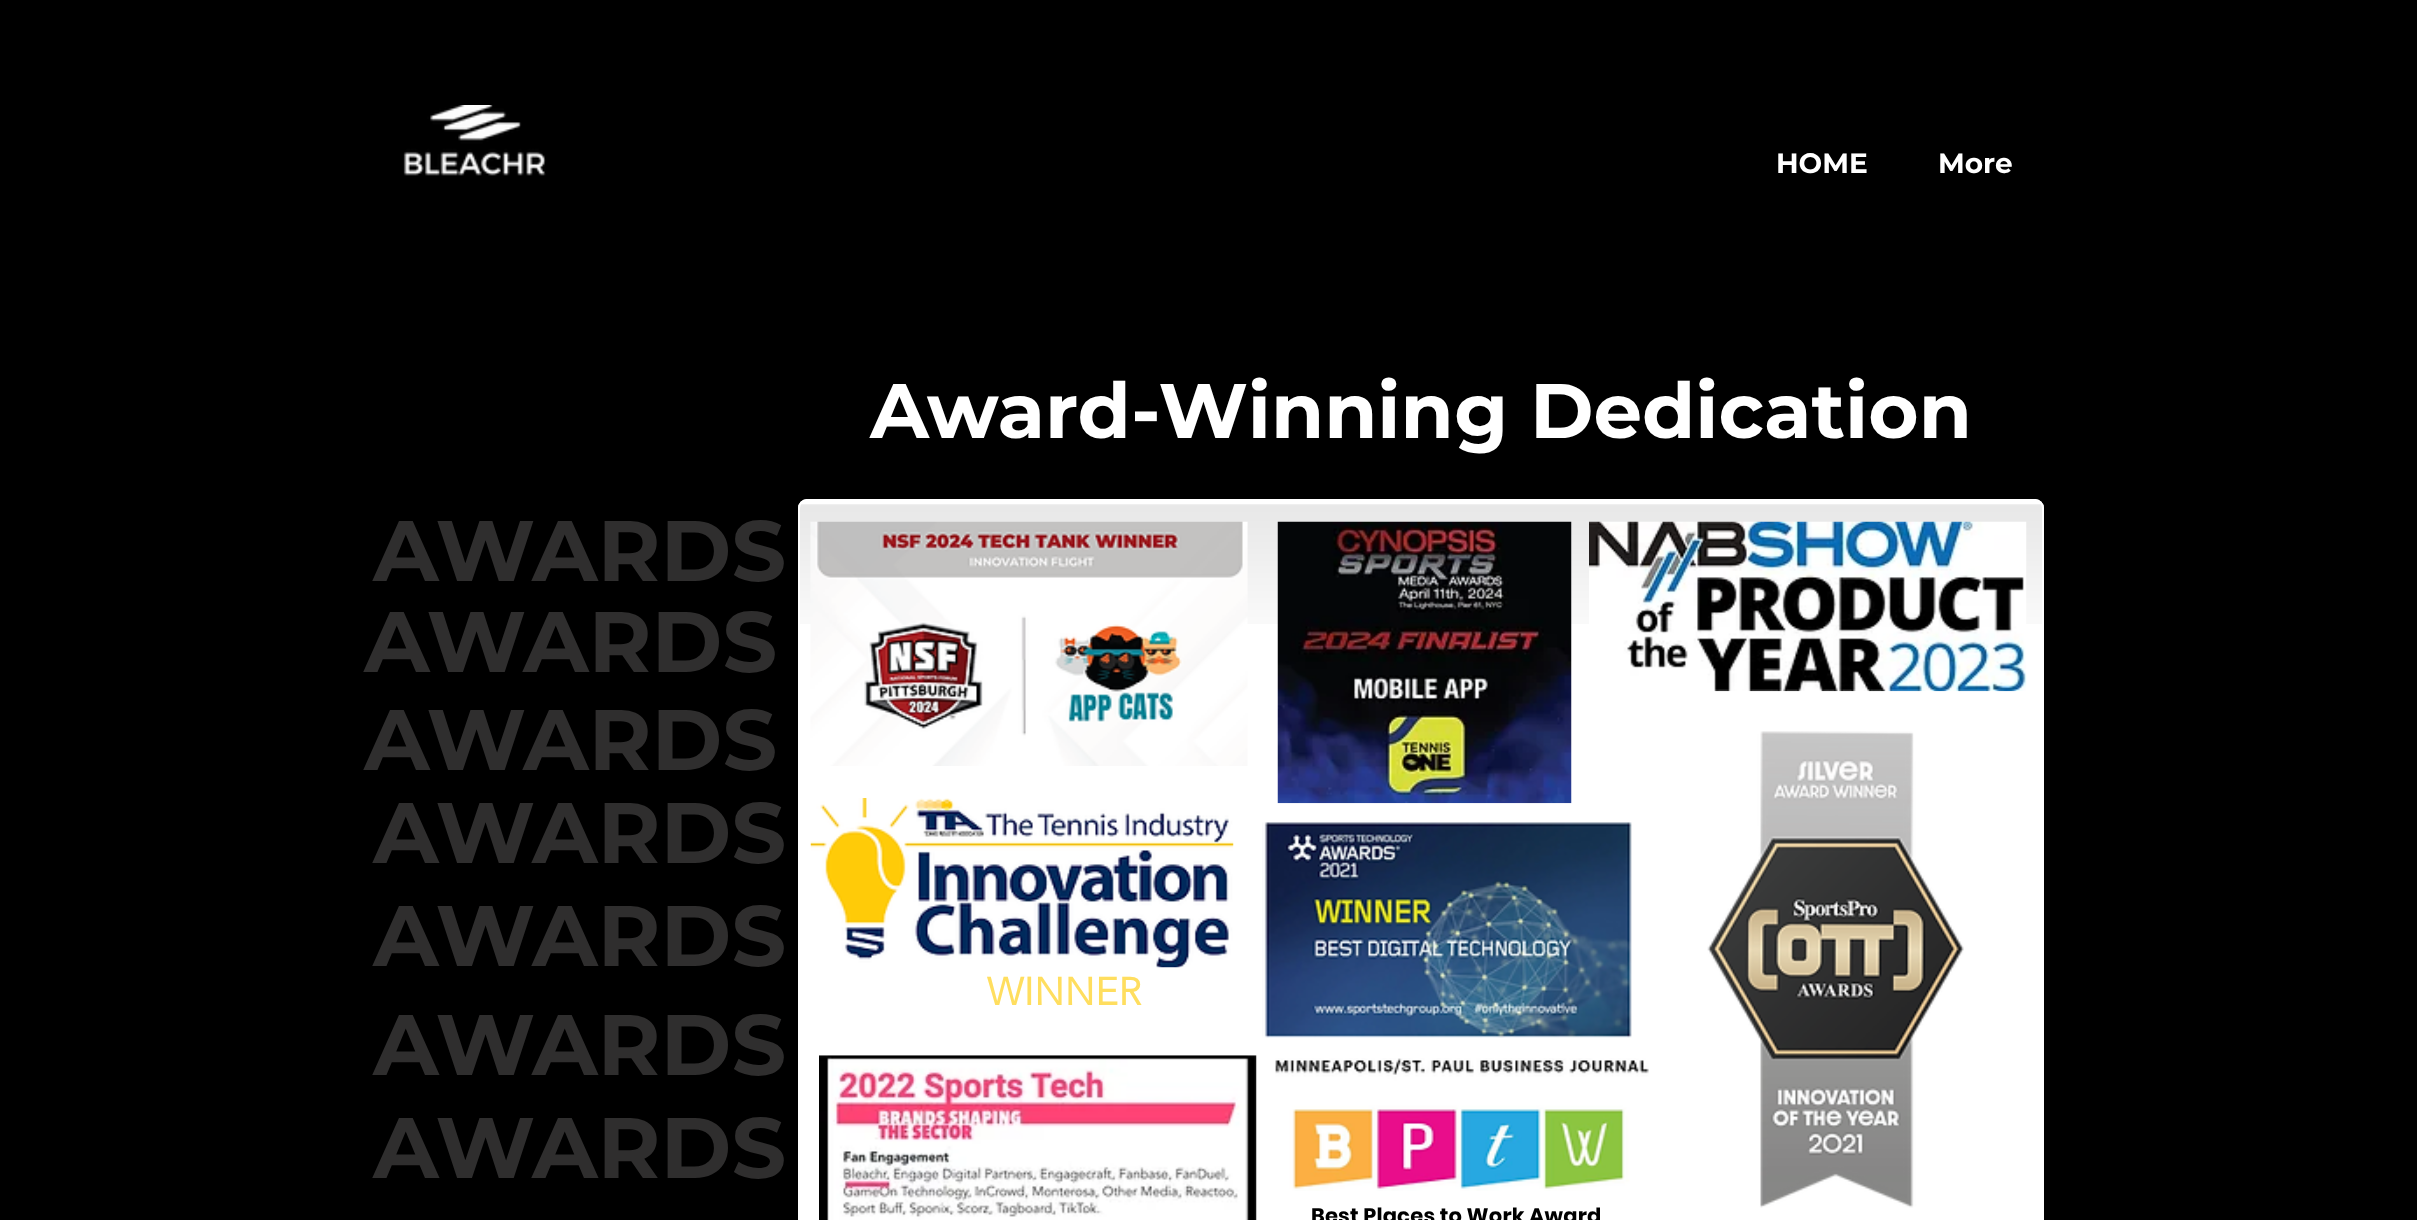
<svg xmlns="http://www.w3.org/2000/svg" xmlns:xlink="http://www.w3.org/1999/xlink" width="2417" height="1220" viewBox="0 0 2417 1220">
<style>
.cls-1{font:bold 28px Montserrat;fill:#ffffff}
.cls-2{font:bold 77px Montserrat;fill:#ffffff}
.cls-3{font:bold 85.75px Montserrat;fill:#2f2e2e}
.cls-4{font:bold 38.5px 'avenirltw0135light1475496';letter-spacing:0.5px;fill:#ffde5f}
.cls-5{font:bold 21px Poppins;letter-spacing:0.2px;fill:#000000}
</style>
<rect width="100%" height="100%" fill="#000000"/>
<image xlink:href="image0.png" x="403" y="105" width="143" height="71"/>
<rect fill="#ffffff" x="798" y="499" width="1246" height="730" rx="9"/>
<image xlink:href="image1.png" x="798" y="504" width="1246" height="120"/>
<rect fill="none" stroke="#ffffff" stroke-width="2" x="799" y="500" width="1244" height="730" rx="8"/>
<image xlink:href="image2.png" x="810" y="521" width="438" height="245"/>
<image xlink:href="image3.png" x="1277" y="521" width="295" height="283"/>
<image xlink:href="image4.png" x="1589" y="521" width="438" height="171"/>
<image xlink:href="image5.png" x="1262" y="822" width="370" height="216"/>
<image xlink:href="image6.png" x="1707" y="731" width="257" height="477"/>
<image xlink:href="image7.png" x="819" y="1055" width="438" height="165"/>
<image xlink:href="image8.png" x="810" y="798" width="424" height="170"/>
<image xlink:href="image9.png" x="1275" y="1058" width="374" height="133"/>
<text class="cls-1" x="1776" y="173">HOME</text>
<text class="cls-1" x="1938" y="173">More</text>
<text class="cls-2" x="870" y="438">Award-Winning Dedication</text>
<text class="cls-3" x="373" y="581">AWARDS</text>
<text class="cls-3"><tspan x="364" y="672">AWARDS</tspan><tspan x="364" y="770">AWARDS</tspan></text>
<text class="cls-3"><tspan x="373" y="863">AWARDS</tspan><tspan x="373" y="966">AWARDS</tspan></text>
<text class="cls-4" x="987" y="1005">WINNER</text>
<text class="cls-3"><tspan x="373" y="1075">AWARDS</tspan><tspan x="373" y="1178">AWARDS</tspan></text>
<text class="cls-5" x="1311" y="1223">Best Places to Work Award</text>
</svg>
